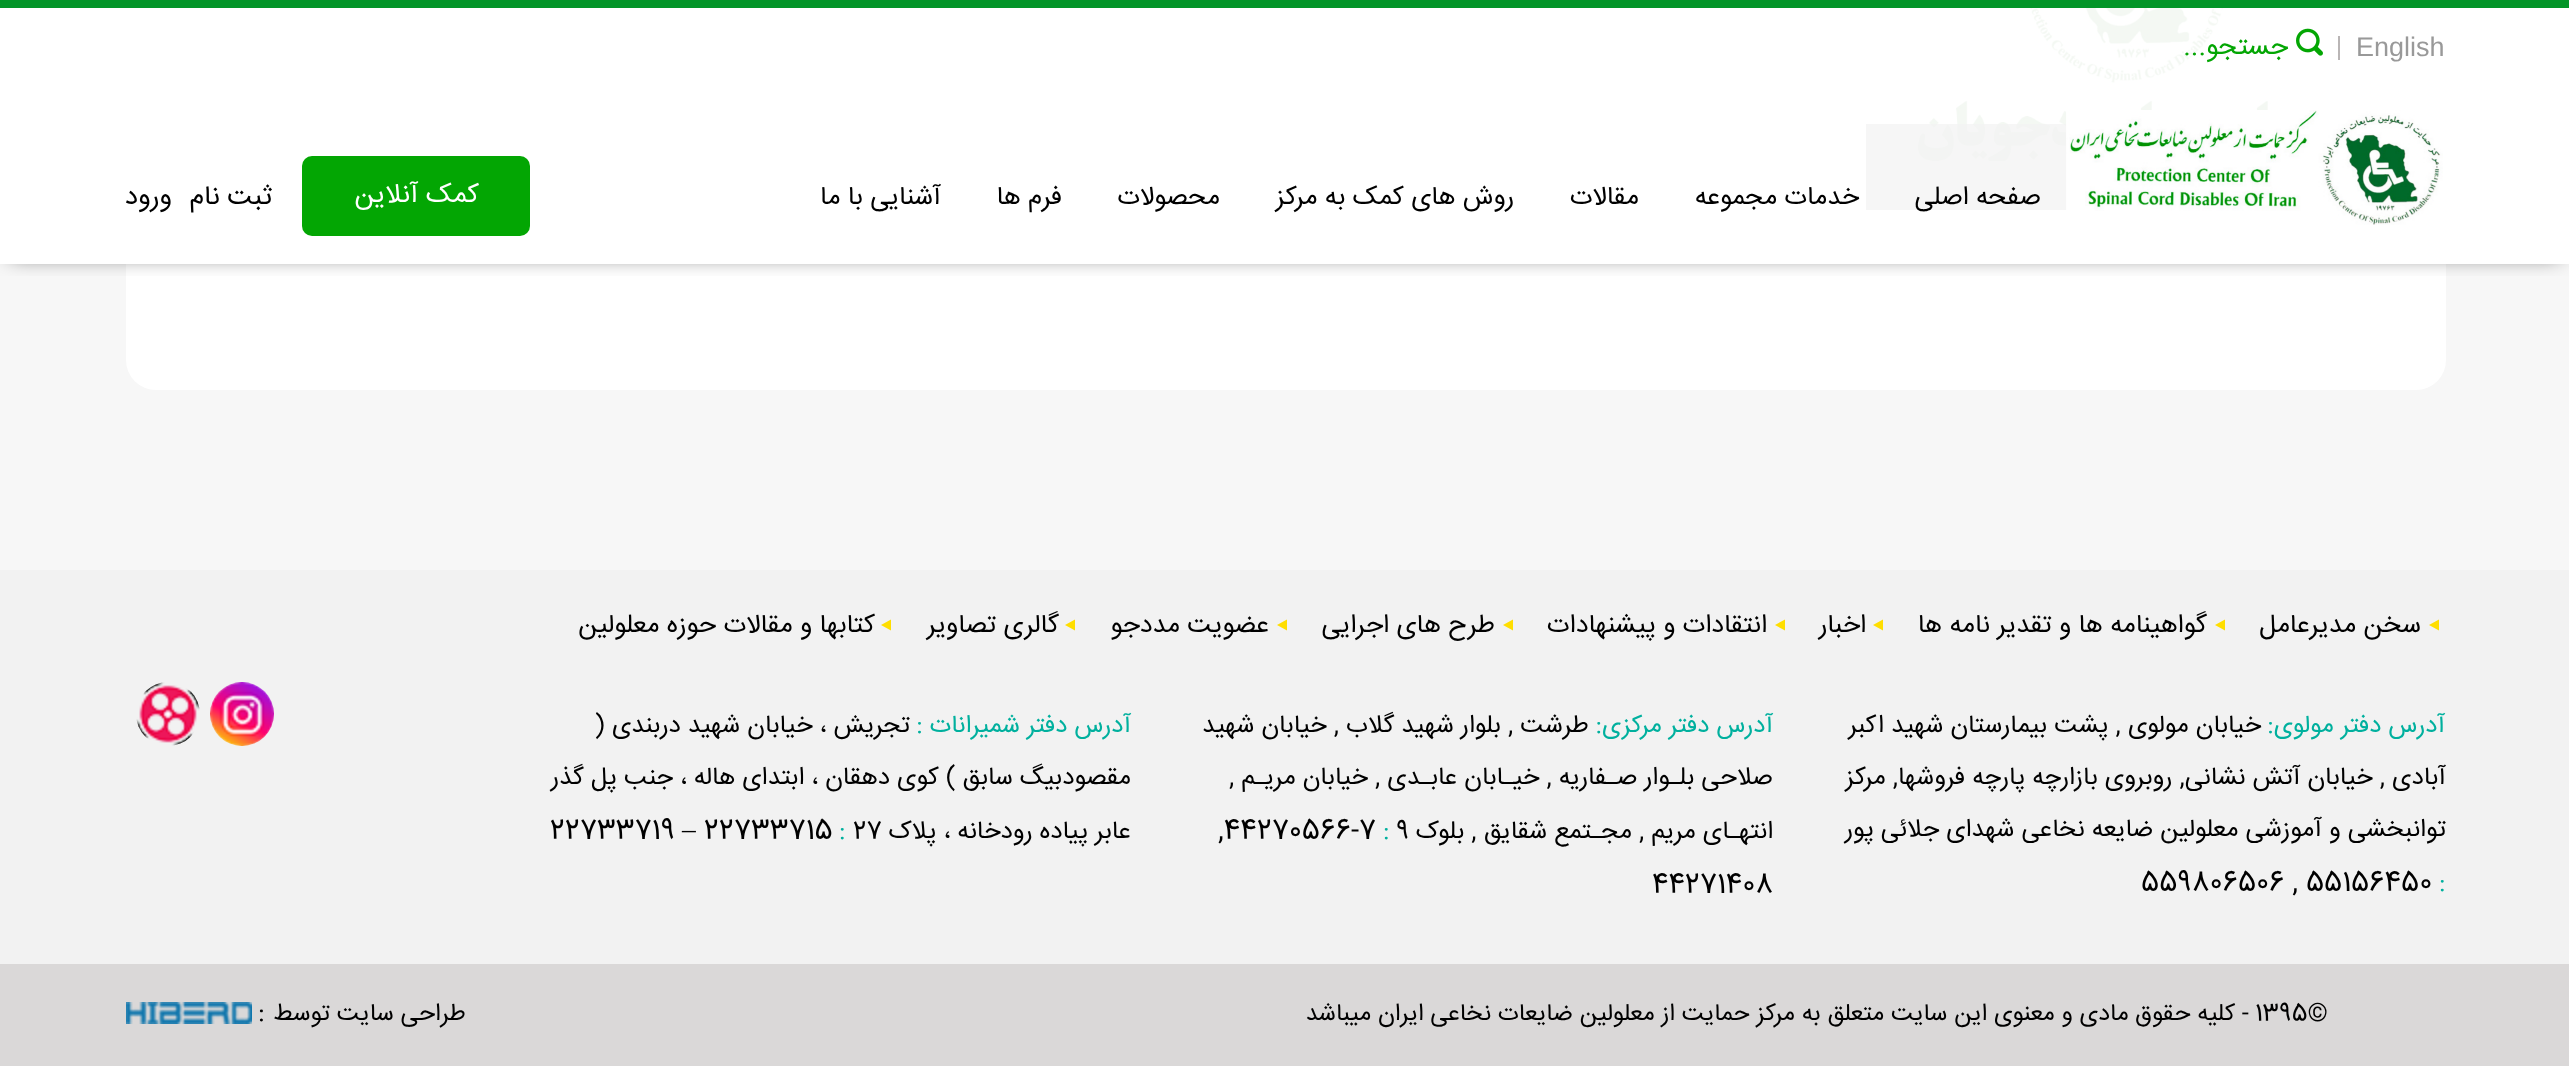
<svg xmlns="http://www.w3.org/2000/svg" xmlns:xlink="http://www.w3.org/1999/xlink" width="2569" height="1066" viewBox="0 0 2569 1066">
<style>
.cls-1{font:27px Liberation Sans;fill:#999999}
.cls-2{font:27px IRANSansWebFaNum;direction:rtl;fill:#03a603}
.cls-3{font:26px IRANSansWebFaNum;direction:rtl;fill:#000000}
.cls-4{font:27px IRANSansWebFaNum;direction:rtl;fill:#ffffff}
.cls-5{font:27px IRANSansWebFaNum;direction:rtl;fill:#000000}
.cls-6{font:24.75px IRANSansWebFaNum;direction:rtl;fill:#00b09e}
.cls-7{font:25px IRANSansWebFaNum;direction:rtl;fill:#000000}
.cls-8{font:24.75px IRANSansWebFaNum;fill:#00b09e}
.cls-9{font:27.5px IRANSansWebFaNum;fill:#000000}
.cls-10{font:25px IRANSansWebFaNum;fill:#000000}
.cls-11{font:27.5px Liberation Serif;fill:#000000}
.cls-12{font:24px IRANSansWebFaNum;fill:#000000}
.cls-13{font:24px IRANSansWebFaNum;direction:rtl;fill:#000000}
.cls-14{font:24.25px IRANSansWebFaNum;direction:rtl;fill:#000000}
.cls-15{font:26px IRANSansWebFaNum;fill:#000000}
</style>
<defs>
<clipPath id="clip1"><rect x="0" y="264" width="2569" height="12"/></clipPath>
</defs>
<rect width="100%" height="100%" fill="#f7f7f7"/>
<rect fill="#ffffff" x="0" y="8" width="2569" height="256"/>
<rect fill="#ffffff" x="126" y="-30" width="2320" height="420" rx="30"/>
<image xlink:href="image0.png" x="1913" y="8" width="423" height="155"/>
<rect fill="#f2f2f2" fill-opacity="0.7" x="1866" y="124" width="201" height="86"/>
<g clip-path="url(#clip1)">
<rect fill="#000000" fill-opacity="0.8" filter="blur(11px)" x="10" y="10" width="2550" height="244"/>
</g>
<rect fill="#039528" x="0" y="0" width="2569" height="8"/>
<rect fill="#b9b5b5" x="2338" y="36" width="2" height="24"/>
<image xlink:href="image1.png" x="2296" y="28" width="27" height="28"/>
<image xlink:href="image2.png" x="2066" y="110" width="377" height="115"/>
<rect fill="#03a603" x="302" y="156" width="228" height="80" rx="10"/>
<rect fill="#f2f2f2" x="0" y="570" width="2569" height="394"/>
<path fill="#ffde00" d="M2439 619.5V630.5L2429 625Z"/>
<path fill="#ffde00" d="M2225 619.5V630.5L2215 625Z"/>
<path fill="#ffde00" d="M1883 619.5V630.5L1873 625Z"/>
<path fill="#ffde00" d="M1785 619.5V630.5L1775 625Z"/>
<path fill="#ffde00" d="M1513 619.5V630.5L1503 625Z"/>
<path fill="#ffde00" d="M1287 619.5V630.5L1277 625Z"/>
<path fill="#ffde00" d="M1075 619.5V630.5L1065 625Z"/>
<path fill="#ffde00" d="M891 619.5V630.5L881 625Z"/>
<image xlink:href="image3.png" x="210" y="682" width="64" height="64"/>
<image xlink:href="image4.png" x="136" y="682" width="64" height="64"/>
<rect fill="#dad8d8" x="0" y="964" width="2569" height="102"/>
<image xlink:href="image5.png" x="126" y="1002" width="126" height="22"/>
<text class="cls-1" x="2356" y="56">English</text>
<text class="cls-2" x="2288" y="54">جستجو...</text>
<text class="cls-3" x="2041" y="204">صفحه اصلی</text>
<text class="cls-3" x="1859" y="204">خدمات مجموعه</text>
<text class="cls-3" x="1639" y="204">مقالات</text>
<text class="cls-3" x="1514" y="204">روش های کمک به مرکز</text>
<text class="cls-3" x="1220" y="204">محصولات</text>
<text class="cls-3" x="1062" y="204">فرم ها</text>
<text class="cls-3" x="941" y="204">آشنایی با ما</text>
<text class="cls-4" x="479" y="202">کمک آنلاین</text>
<text class="cls-5" x="272" y="204">ثبت نام</text>
<text class="cls-5" x="172" y="204">ورود</text>
<text class="cls-3" x="2421" y="632">سخن مدیرعامل</text>
<text class="cls-3" x="2207" y="632">گواهینامه ها و تقدیر نامه ها</text>
<text class="cls-3" x="1866" y="632">اخبار</text>
<text class="cls-3" x="1767" y="632">انتقادات و پیشنهادات</text>
<text class="cls-3" x="1495" y="632">طرح های اجرایی</text>
<text class="cls-3" x="1269" y="632">عضویت مددجو</text>
<text class="cls-3" x="1059" y="632">گالری تصاویر</text>
<text class="cls-3" x="875" y="632">کتابها و مقالات حوزه معلولین</text>
<text class="cls-6" x="2445" y="732">آدرس دفتر مولوی:</text>
<text class="cls-7" x="2261" y="732">خیابان مولوی , پشت بیمارستان شهید اکبر</text>
<text class="cls-7" x="2446" y="784">آبادی , خیابان آتش نشانی, روبروی بازارچه پارچه فروشها, مرکز</text>
<text class="cls-7" x="2446" y="836">توانبخشی و آموزشی معلولین ضایعه نخاعی شهدای جلائی پور</text>
<text class="cls-8" x="2439" y="890">:</text>
<text class="cls-9" x="2141" y="890">559806506 , 55156450</text>
<text class="cls-6" x="1773" y="732">آدرس دفتر مرکزی:</text>
<text class="cls-7" x="1589" y="732">طرشت , بلوار شهید گلاب , خیابان شهید</text>
<text class="cls-7" x="1773" y="784">صلاحی بلـوار صـفاریه , خیـابان عابـدی , خیابان مریـم ,</text>
<text class="cls-7" x="1773" y="838">انتهـای مریم , مجـتمع شقایق , بلوک</text>
<text class="cls-10" x="1396" y="838">9</text>
<text class="cls-8" x="1383" y="838">:</text>
<text class="cls-9" x="1218" y="838">,44270566-7</text>
<text class="cls-9" x="1652" y="892">44271408</text>
<text class="cls-6" x="1131" y="732">آدرس دفتر شمیرانات :</text>
<text class="cls-7" x="910" y="732">تجریش ، خیابان شهید دربندی (</text>
<text class="cls-7" x="1131" y="784">مقصودبیگ سابق ) کوی دهقان ، ابتدای هاله ، جنب پل گذر</text>
<text class="cls-7" x="1131" y="838">عابر پیاده رودخانه ، پلاک</text>
<text class="cls-10" x="853" y="838">27</text>
<text class="cls-8" x="839" y="838">:</text>
<text class="cls-9" x="704" y="838">22733715</text>
<text class="cls-11" x="682" y="838">–</text>
<text class="cls-9" x="550" y="838">22733719</text>
<text class="cls-12" x="2255" y="1020">1395©</text>
<text class="cls-13" x="2249" y="1020">- کلیه حقوق مادی و معنوی این سایت متعلق به مرکز حمایت از معلولین ضایعات نخاعی ایران میباشد</text>
<text class="cls-14" x="466" y="1020">طراحی سایت توسط</text>
<text class="cls-15" x="258" y="1020">:</text>
</svg>
